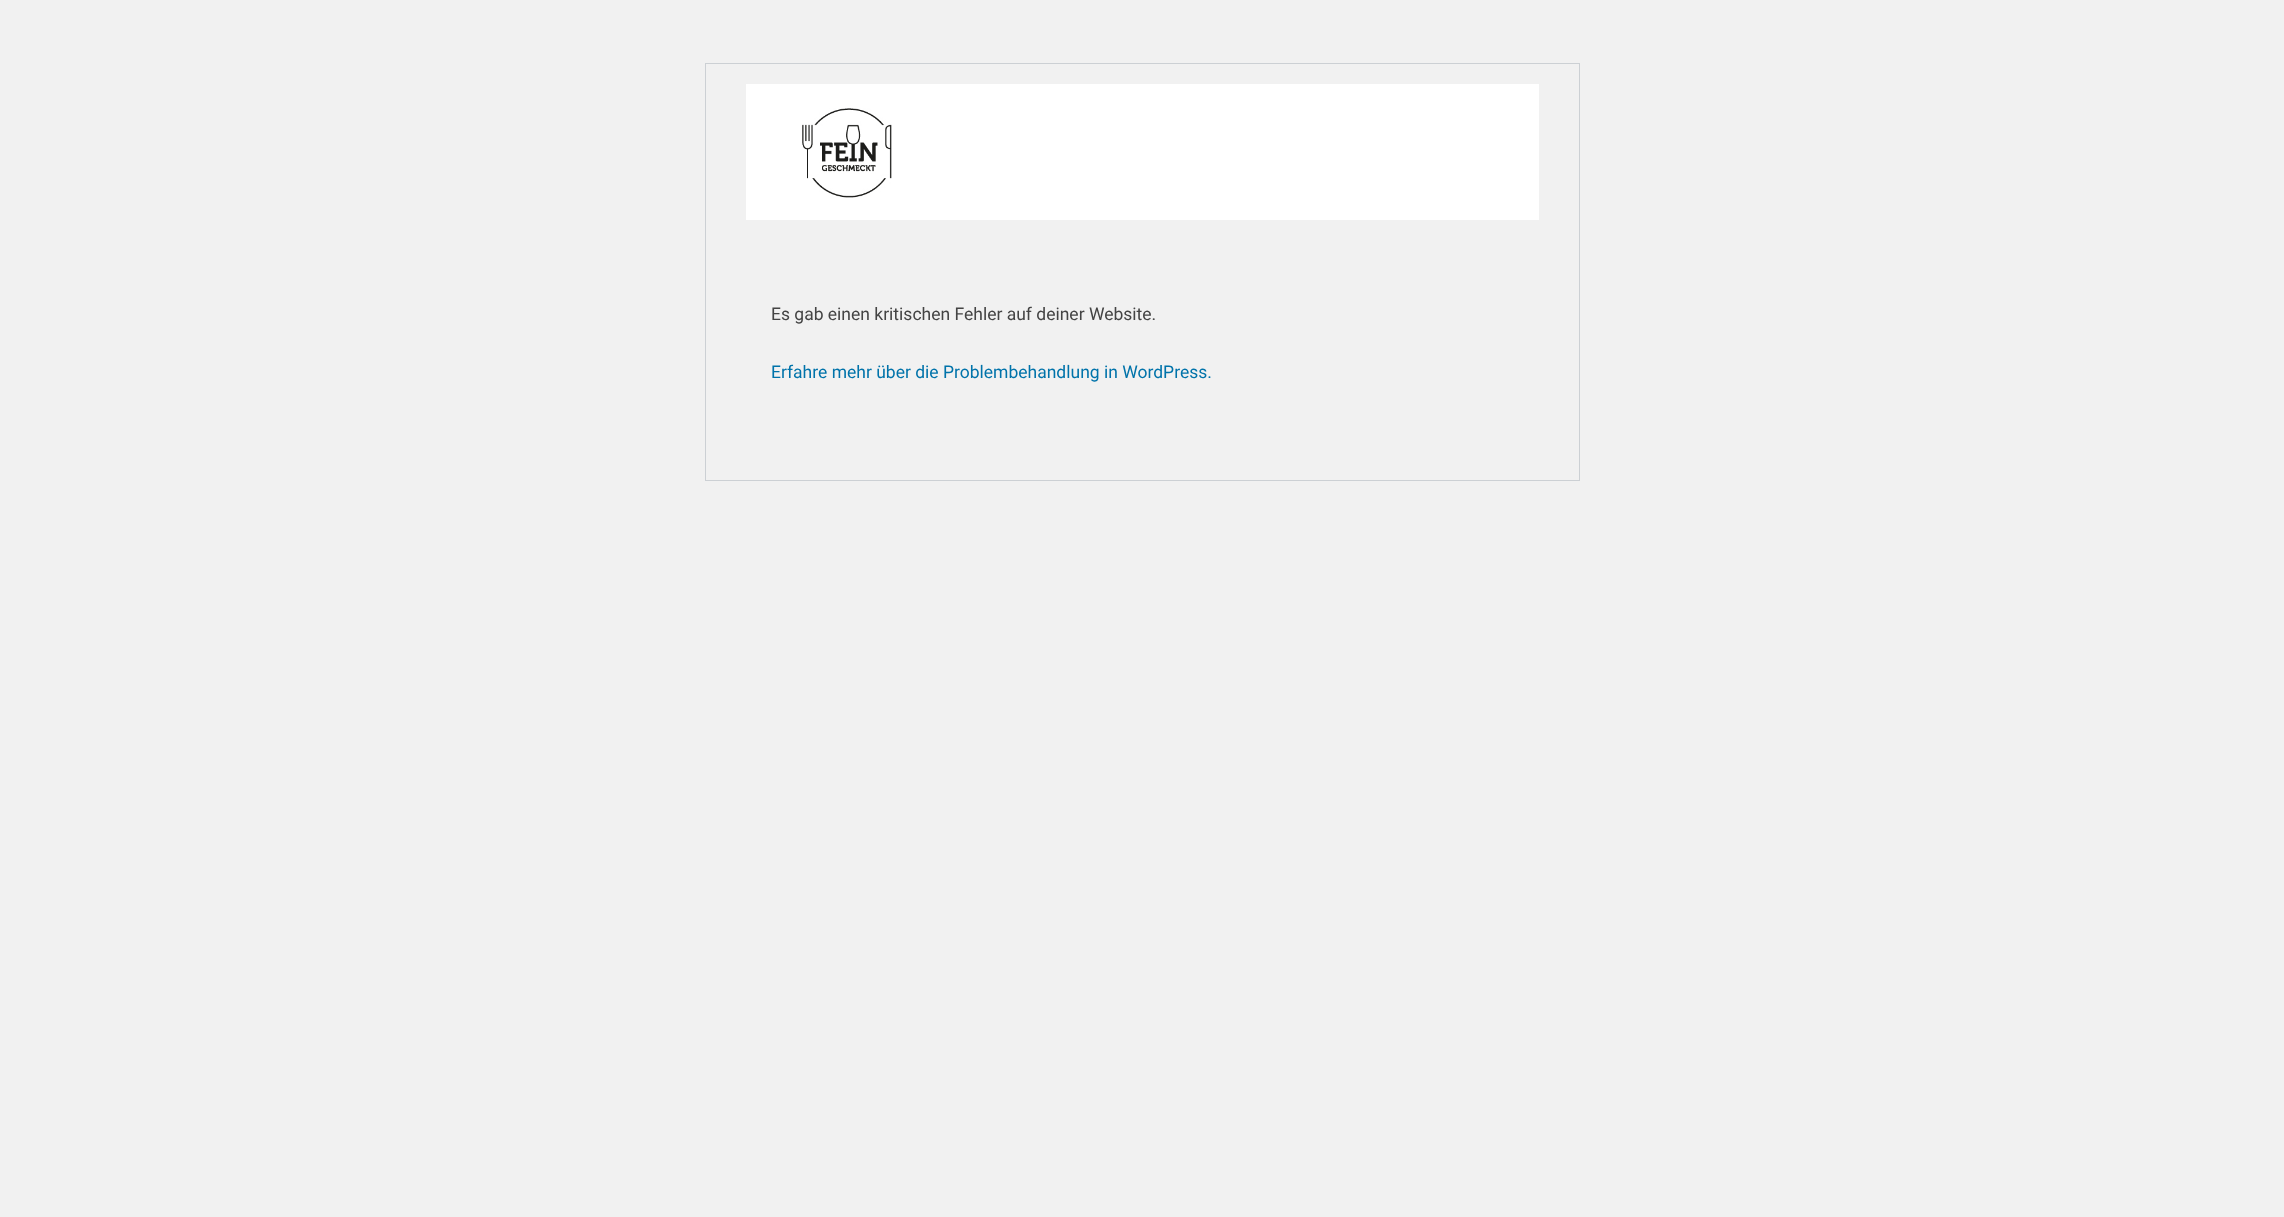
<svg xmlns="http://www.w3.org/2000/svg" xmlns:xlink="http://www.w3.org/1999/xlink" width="2284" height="1217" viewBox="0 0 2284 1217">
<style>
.cls-1{font:17.5px Roboto;fill:#444444}
.cls-2{font:17.5px Roboto;fill:#0073aa}
</style>
<rect width="100%" height="100%" fill="#f1f1f1"/>
<rect fill="none" stroke="#ccd0d4" x="705.5" y="63.5" width="874" height="417"/>
<rect fill="#ffffff" x="746" y="84" width="793" height="136"/>
<image xlink:href="image0.png" x="802" y="108" width="90" height="90"/>
<text class="cls-1" x="771" y="320">Es gab einen kritischen Fehler auf deiner Website.</text>
<text class="cls-2" x="771" y="378">Erfahre mehr über die Problembehandlung in WordPress.</text>
</svg>
